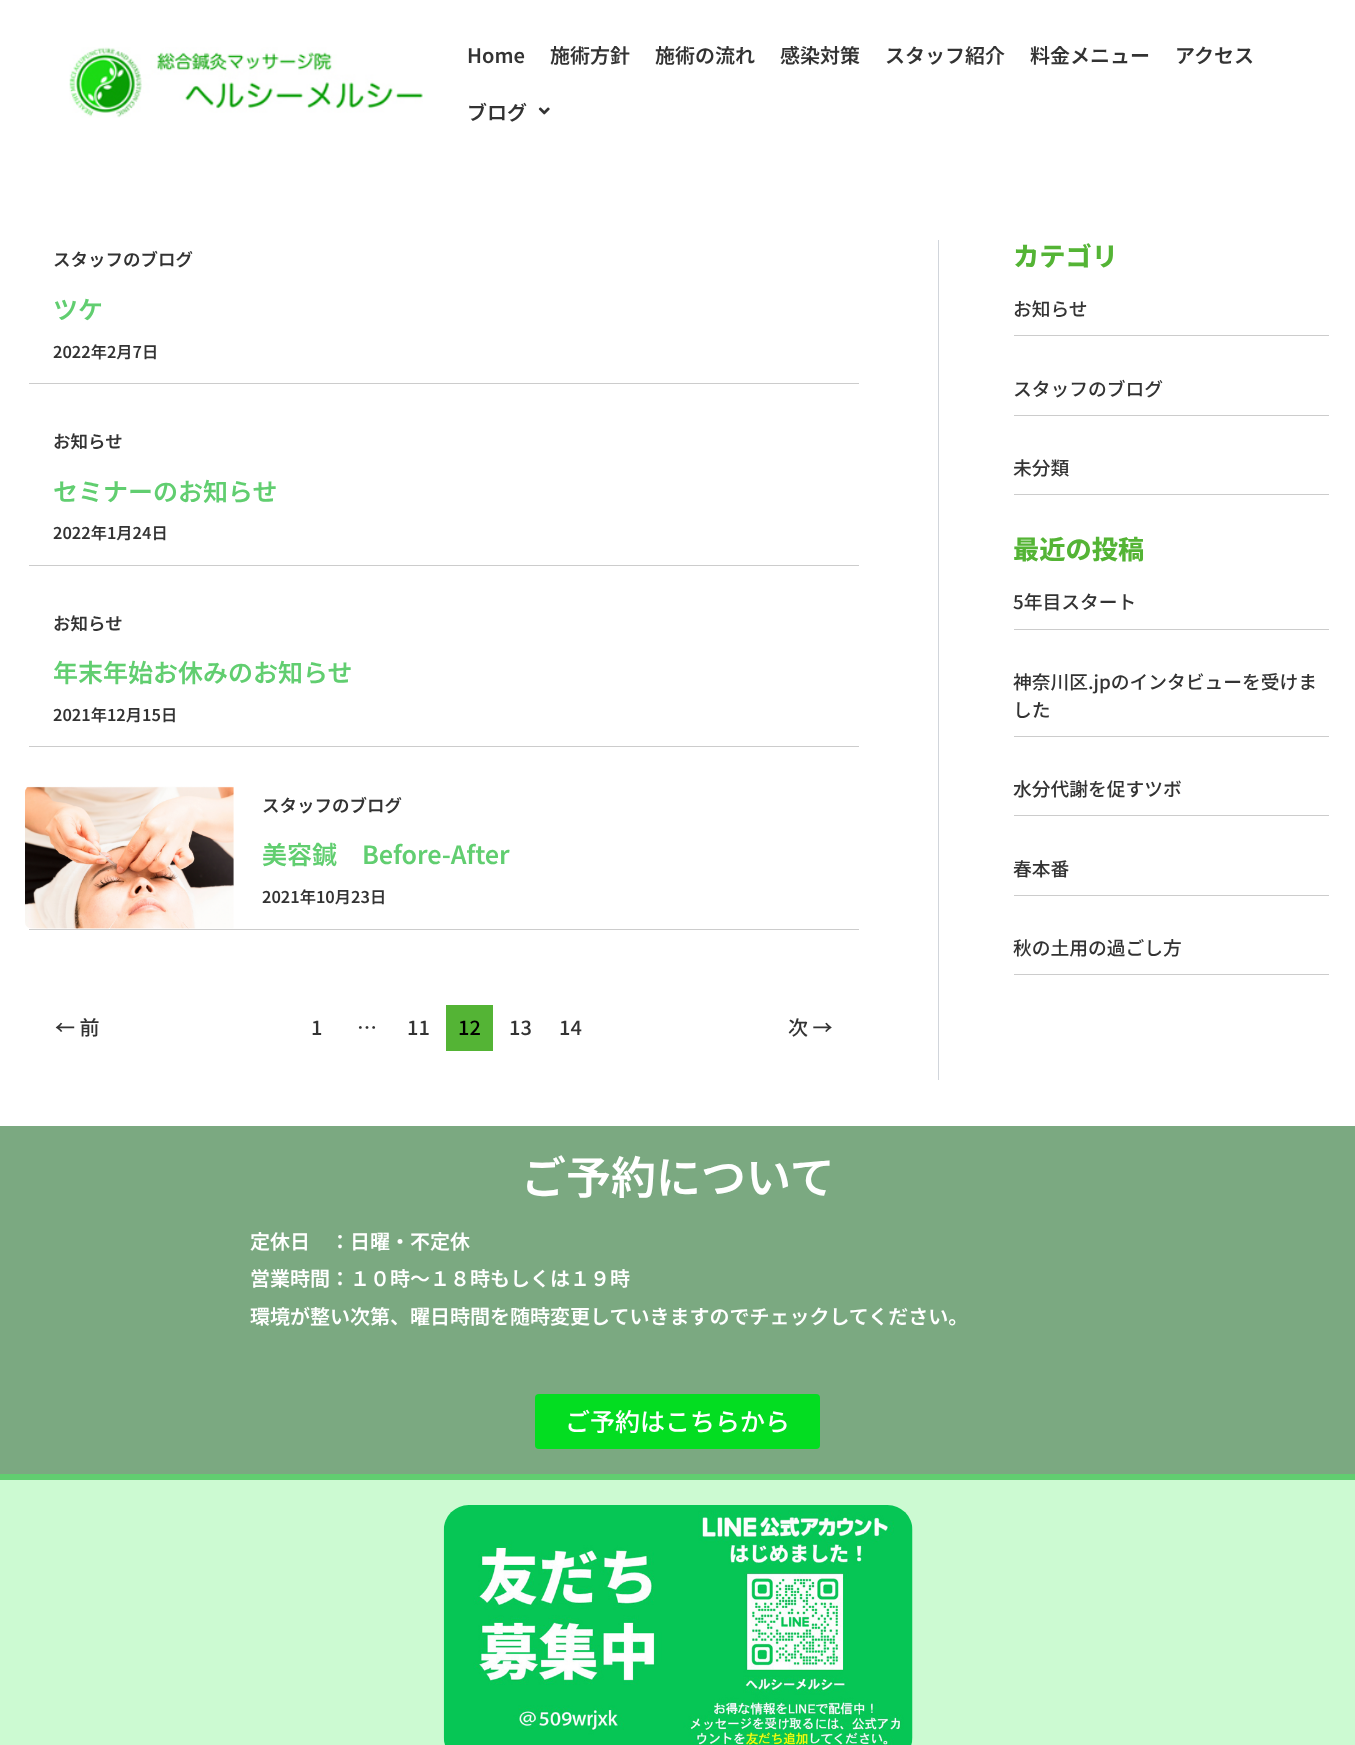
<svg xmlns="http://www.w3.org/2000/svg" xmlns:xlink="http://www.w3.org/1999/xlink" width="1355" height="1745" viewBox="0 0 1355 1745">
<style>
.cls-1{font:600 20px Noto Sans JP;fill:#333333}
.cls-2{font:600 17.5px Noto Sans JP;fill:#333333}
.cls-3{font:600 25px Noto Sans JP;fill:#61ce70}
.cls-4{font:600 16.25px Noto Sans JP;fill:#333333}
.cls-5{font:500 20px Noto Sans JP;fill:#333333}
.cls-6{font:500 20px Noto Sans JP;fill:#000000}
.cls-7{font:800 26.25px Noto Sans JP;fill:#54b435}
.cls-8{font:500 18.75px Noto Sans JP;fill:#333333}
.cls-9{font:600 45px Noto Sans JP;fill:#ffffff}
.cls-10{font:600 20px Noto Sans JP;fill:#ffffff}
.cls-11{font:500 25px Noto Sans JP;fill:#ffffff}
</style>
<rect width="100%" height="100%" fill="#ffffff"/>
<image xlink:href="image0.png" x="69" y="47" width="354" height="71"/>
<image xlink:href="image1.png" x="538" y="107" width="12" height="8"/>
<rect fill="#cccccc" x="29" y="383" width="830" height="1"/>
<rect fill="#cccccc" x="29" y="565" width="830" height="1"/>
<rect fill="#cccccc" x="29" y="746" width="830" height="1"/>
<rect fill="#cccccc" x="29" y="929" width="830" height="1"/>
<image xlink:href="image2.png" x="25" y="786" width="209" height="143"/>
<rect fill="#54b435" x="446" y="1005" width="47" height="46"/>
<rect fill="#d1d5db" x="938" y="240" width="1" height="840"/>
<rect fill="#cccccc" x="1014" y="335" width="315" height="1"/>
<rect fill="#cccccc" x="1014" y="415" width="315" height="1"/>
<rect fill="#cccccc" x="1014" y="494" width="315" height="1"/>
<rect fill="#cccccc" x="1014" y="629" width="315" height="1"/>
<rect fill="#cccccc" x="1014" y="736" width="315" height="1"/>
<rect fill="#cccccc" x="1014" y="815" width="315" height="1"/>
<rect fill="#cccccc" x="1014" y="895" width="315" height="1"/>
<rect fill="#cccccc" x="1014" y="974" width="315" height="1"/>
<rect fill="#7ba981" x="0" y="1126" width="1355" height="348"/>
<rect fill="#61ce70" x="0" y="1474" width="1355" height="6"/>
<rect fill="#03dd21" x="535" y="1394" width="285" height="55" rx="4"/>
<rect fill="#ccfad2" x="0" y="1480" width="1355" height="265"/>
<image xlink:href="image3.png" x="443" y="1505" width="470" height="240"/>
<text class="cls-1" x="467" y="63">Home</text>
<text class="cls-1" x="550" y="63">施術方針</text>
<text class="cls-1" x="655" y="63">施術の流れ</text>
<text class="cls-1" x="780" y="63">感染対策</text>
<text class="cls-1" x="885" y="63">スタッフ紹介</text>
<text class="cls-1" x="1030" y="63">料金メニュー</text>
<text class="cls-1" x="1175" y="63">アクセス</text>
<text class="cls-1" x="467" y="120">ブログ</text>
<text class="cls-2" x="53" y="266">スタッフのブログ</text>
<text class="cls-3" x="53" y="319">ツケ</text>
<text class="cls-4" x="53" y="358">2022年2月7日</text>
<text class="cls-2" x="53" y="448">お知らせ</text>
<text class="cls-3" x="53" y="501">セミナーのお知らせ</text>
<text class="cls-4" x="53" y="539">2022年1月24日</text>
<text class="cls-2" x="53" y="630">お知らせ</text>
<text class="cls-3" x="53" y="682">年末年始お休みのお知らせ</text>
<text class="cls-4" x="53" y="721">2021年12月15日</text>
<text class="cls-2" x="262" y="812">スタッフのブログ</text>
<text class="cls-3" x="262" y="864">美容鍼　Before-After</text>
<text class="cls-4" x="262" y="903">2021年10月23日</text>
<text class="cls-5" x="55" y="1035">← 前</text>
<text class="cls-5" x="311" y="1035">1</text>
<text class="cls-5" x="357" y="1035">…</text>
<text class="cls-5" x="407" y="1035">11</text>
<text class="cls-6" x="458" y="1035">12</text>
<text class="cls-5" x="509" y="1035">13</text>
<text class="cls-5" x="559" y="1035">14</text>
<text class="cls-5" x="788" y="1035">次 →</text>
<text class="cls-7" x="1013" y="266">カテゴリ</text>
<text class="cls-8" x="1013" y="316">お知らせ</text>
<text class="cls-8" x="1013" y="396">スタッフのブログ</text>
<text class="cls-8" x="1013" y="475">未分類</text>
<text class="cls-7" x="1013" y="559">最近の投稿</text>
<text class="cls-8" x="1013" y="609">5年目スタート</text>
<text class="cls-8"><tspan x="1013" y="689">神奈川区.jpのインタビューを受けま</tspan><tspan x="1013" y="717">した</tspan></text>
<text class="cls-8" x="1013" y="796">水分代謝を促すツボ</text>
<text class="cls-8" x="1013" y="876">春本番</text>
<text class="cls-8" x="1013" y="955">秋の土用の過ごし方</text>
<text class="cls-9" x="521" y="1194">ご予約について</text>
<text class="cls-10"><tspan x="250" y="1249">定休日　：日曜・不定休</tspan><tspan x="250" y="1286">営業時間：１０時～１８時もしくは１９時</tspan><tspan x="250" y="1324">環境が整い次第、曜日時間を随時変更していきますのでチェックしてください。</tspan></text>
<text class="cls-11" x="565" y="1431">ご予約はこちらから</text>
</svg>
